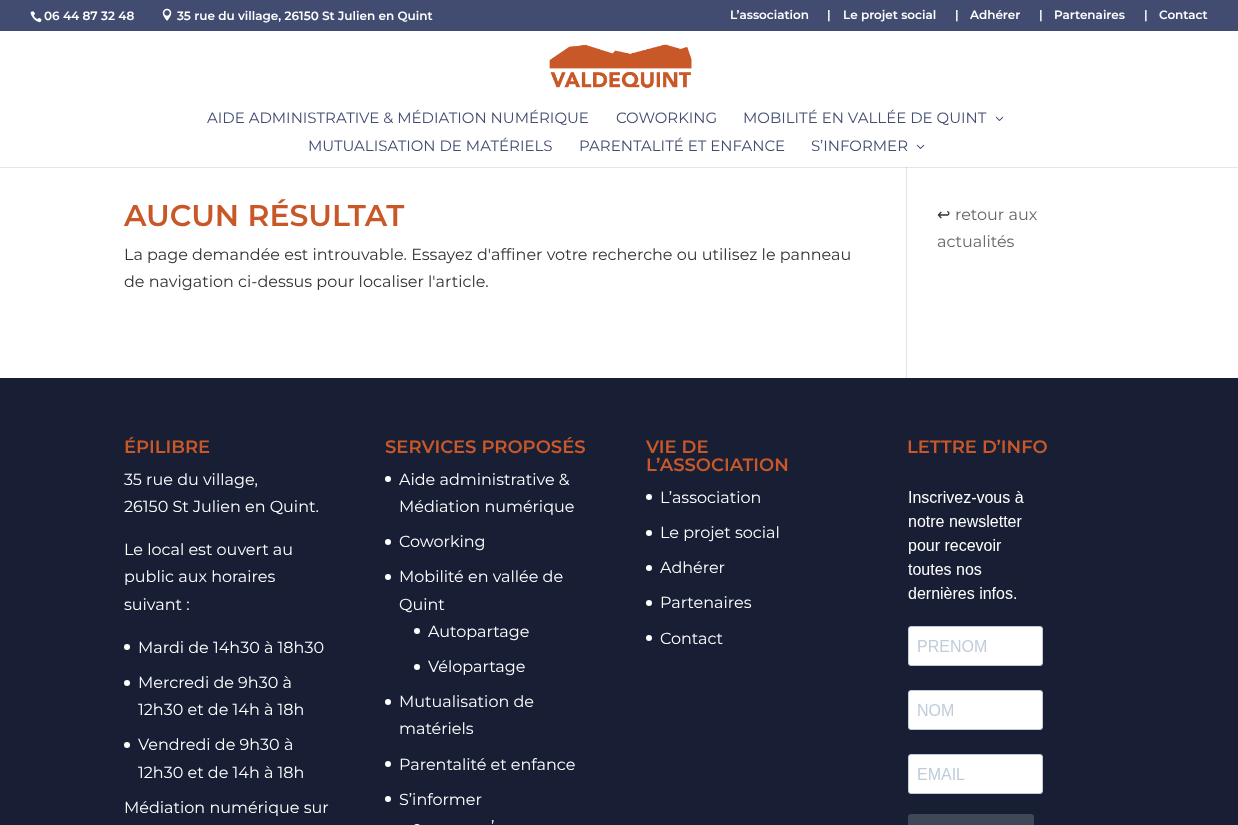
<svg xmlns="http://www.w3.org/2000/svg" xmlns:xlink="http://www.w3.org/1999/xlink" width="1238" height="825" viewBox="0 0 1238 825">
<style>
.cls-1{font:600 12px Montserrat;fill:#ffffff}
.cls-2{font:15px Montserrat;fill:#424c71}
.cls-3{font:600 30px Montserrat;fill:#c95828}
.cls-4{font:16px Montserrat;fill:#333333}
.cls-5{font:16px DejaVu Sans;fill:#333333}
.cls-6{font:16px Montserrat;fill:#666666}
.cls-7{font:600 18px Montserrat;fill:#c95828}
.cls-8{font:16px Montserrat;fill:#ffffff}
</style>
<rect width="100%" height="100%" fill="#ffffff"/>
<rect fill="#e6e6e6" x="0" y="167" width="1238" height="1"/>
<rect fill="#424c71" x="0" y="0" width="1238" height="31"/>
<image xlink:href="image0.png" x="30" y="11" width="12" height="12"/>
<image xlink:href="image1.png" x="162" y="8" width="10" height="13"/>
<image xlink:href="image2.png" x="549" y="44" width="143" height="48"/>
<image xlink:href="image3.png" x="995" y="116" width="9" height="5"/>
<image xlink:href="image3.png" x="916" y="144" width="9" height="5"/>
<rect fill="#e2e2e2" x="906" y="168" width="1" height="210"/>
<rect fill="#cbcbcb" x="906" y="167" width="1" height="1"/>
<rect fill="#181f35" x="0" y="378" width="1238" height="447"/>
<circle fill="#ffffff" cx="127" cy="647" r="3"/>
<circle fill="#ffffff" cx="127" cy="683" r="3"/>
<circle fill="#ffffff" cx="127" cy="745" r="3"/>
<circle fill="#ffffff" cx="388" cy="479" r="3"/>
<circle fill="#ffffff" cx="388" cy="542" r="3"/>
<circle fill="#ffffff" cx="388" cy="577" r="3"/>
<circle fill="#ffffff" cx="417" cy="631" r="3"/>
<circle fill="#ffffff" cx="417" cy="667" r="3"/>
<circle fill="#ffffff" cx="388" cy="702" r="3"/>
<circle fill="#ffffff" cx="388" cy="764" r="3"/>
<circle fill="#ffffff" cx="388" cy="799" r="3"/>
<rect fill="#ffffff" x="414" y="824" width="6" height="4" rx="3"/>
<circle fill="#ffffff" cx="649" cy="497" r="3"/>
<circle fill="#ffffff" cx="649" cy="533" r="3"/>
<circle fill="#ffffff" cx="649" cy="568" r="3"/>
<circle fill="#ffffff" cx="649" cy="603" r="3"/>
<circle fill="#ffffff" cx="649" cy="638" r="3"/>
<image xlink:href="image4.png" x="908" y="491" width="135" height="334"/>
<text class="cls-1" x="44" y="20">06 44 87 32 48</text>
<text class="cls-1" x="177" y="20">35 rue du village, 26150 St Julien en Quint</text>
<text class="cls-1" x="730" y="19">L’association</text>
<text class="cls-1" x="827" y="19">|</text>
<text class="cls-1" x="843" y="19">Le projet social</text>
<text class="cls-1" x="955" y="19">|</text>
<text class="cls-1" x="970" y="19">Adhérer</text>
<text class="cls-1" x="1039" y="19">|</text>
<text class="cls-1" x="1054" y="19">Partenaires</text>
<text class="cls-1" x="1144" y="19">|</text>
<text class="cls-1" x="1159" y="19">Contact</text>
<text class="cls-2" x="207" y="123">AIDE ADMINISTRATIVE &amp; MÉDIATION NUMÉRIQUE</text>
<text class="cls-2" x="616" y="123">COWORKING</text>
<text class="cls-2" x="743" y="123">MOBILITÉ EN VALLÉE DE QUINT</text>
<text class="cls-2" x="308" y="151">MUTUALISATION DE MATÉRIELS</text>
<text class="cls-2" x="579" y="151">PARENTALITÉ ET ENFANCE</text>
<text class="cls-2" x="811" y="151">S’INFORMER</text>
<text class="cls-3" x="124" y="226">AUCUN RÉSULTAT</text>
<text class="cls-4"><tspan x="124" y="260">La page demandée est introuvable. Essayez d'affiner votre recherche ou utilisez le panneau</tspan><tspan x="124" y="287">de navigation ci-dessus pour localiser l'article.</tspan></text>
<text class="cls-5" x="937" y="220">↩</text>
<text class="cls-6" x="955" y="220">retour aux</text>
<text class="cls-6" x="937" y="247">actualités</text>
<text class="cls-7" x="124" y="453">ÉPILIBRE</text>
<text class="cls-8"><tspan x="124" y="485">35 rue du village,</tspan><tspan x="124" y="512">26150 St Julien en Quint.</tspan></text>
<text class="cls-8"><tspan x="124" y="555">Le local est ouvert au</tspan><tspan x="124" y="582">public aux horaires</tspan><tspan x="124" y="610">suivant :</tspan></text>
<text class="cls-8" x="138" y="653">Mardi de 14h30 à 18h30</text>
<text class="cls-8"><tspan x="138" y="688">Mercredi de 9h30 à</tspan><tspan x="138" y="715">12h30 et de 14h à 18h</tspan></text>
<text class="cls-8"><tspan x="138" y="750">Vendredi de 9h30 à</tspan><tspan x="138" y="778">12h30 et de 14h à 18h</tspan></text>
<text class="cls-8" x="124" y="813">Médiation numérique sur</text>
<text class="cls-7" x="385" y="453">SERVICES PROPOSÉS</text>
<text class="cls-8"><tspan x="399" y="485">Aide administrative &amp;</tspan><tspan x="399" y="512">Médiation numérique</tspan></text>
<text class="cls-8" x="399" y="547">Coworking</text>
<text class="cls-8"><tspan x="399" y="582">Mobilité en vallée de</tspan><tspan x="399" y="610">Quint</tspan></text>
<text class="cls-8" x="428" y="637">Autopartage</text>
<text class="cls-8" x="428" y="672">Vélopartage</text>
<text class="cls-8"><tspan x="399" y="707">Mutualisation de</tspan><tspan x="399" y="734">matériels</tspan></text>
<text class="cls-8" x="399" y="770">Parentalité et enfance</text>
<text class="cls-8" x="399" y="805">S’informer</text>
<text class="cls-8" x="491" y="832">’</text>
<text class="cls-7"><tspan x="646" y="453">VIE DE</tspan><tspan x="646" y="471">L’ASSOCIATION</tspan></text>
<text class="cls-8" x="660" y="503">L’association</text>
<text class="cls-8" x="660" y="538">Le projet social</text>
<text class="cls-8" x="660" y="573">Adhérer</text>
<text class="cls-8" x="660" y="608">Partenaires</text>
<text class="cls-8" x="660" y="644">Contact</text>
<text class="cls-7" x="907" y="453">LETTRE D’INFO</text>
</svg>
